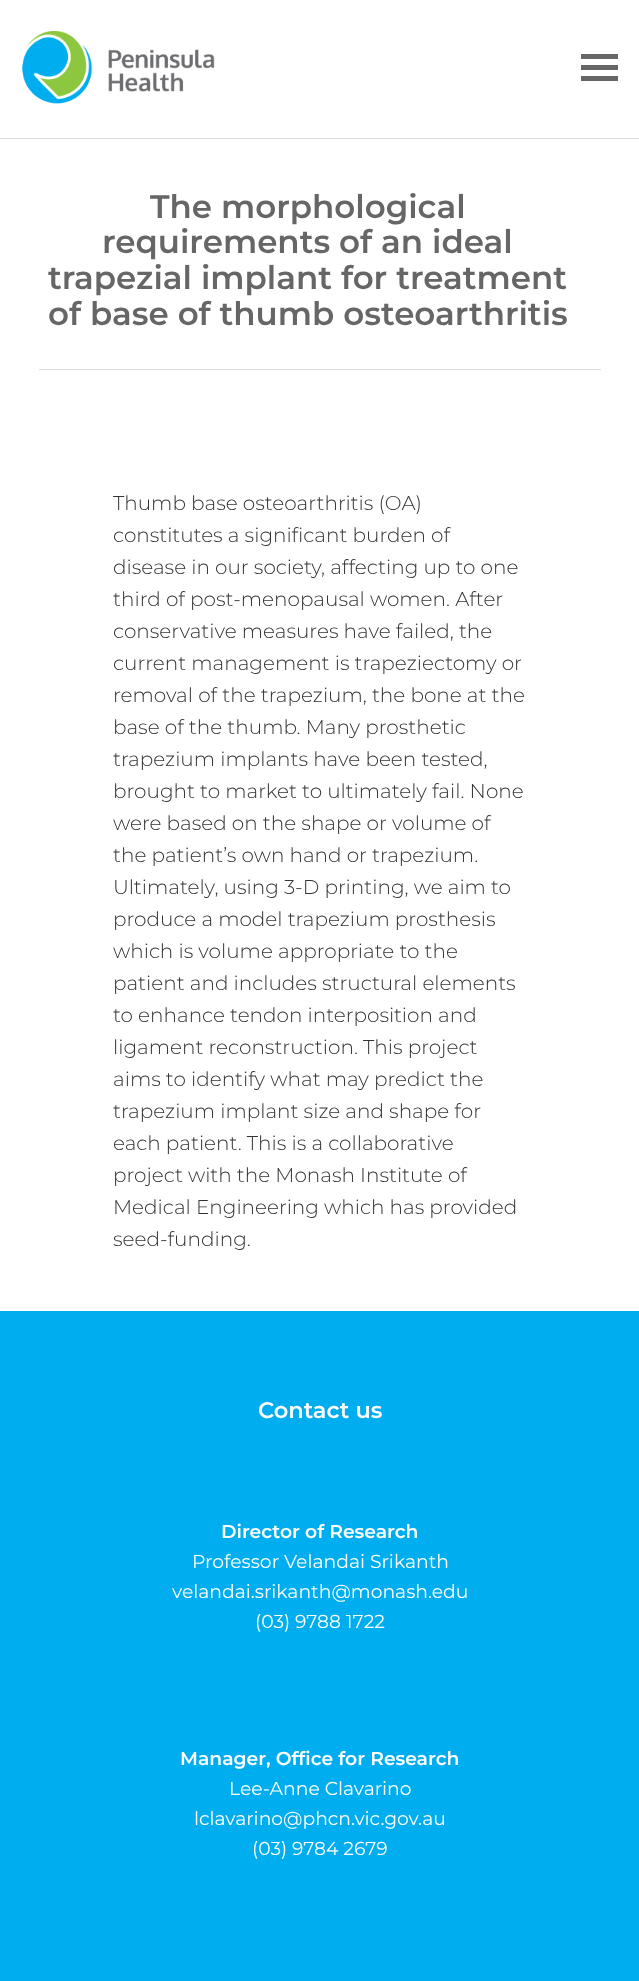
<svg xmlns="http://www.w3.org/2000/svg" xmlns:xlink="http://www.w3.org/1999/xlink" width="639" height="1981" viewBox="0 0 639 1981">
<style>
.cls-1{font:600 32.5px Montserrat;fill:#666666}
.cls-2{font:300 20px Montserrat;fill:#333333}
.cls-3{font:600 22.5px Montserrat;fill:#ffffff}
.cls-4{font:600 18.75px Montserrat;fill:#ffffff}
.cls-5{font:18.75px Montserrat;fill:#ffffff}
</style>
<rect width="100%" height="100%" fill="#ffffff"/>
<rect fill="#dddddd" x="0" y="138" width="639" height="1"/>
<image xlink:href="image0.png" x="22" y="31" width="193" height="73"/>
<rect fill="#666666" x="581" y="76" width="37" height="5"/>
<rect fill="#666666" x="581" y="65" width="37" height="5"/>
<rect fill="#666666" x="581" y="54" width="37" height="5"/>
<rect fill="#dddddd" x="39" y="369" width="562" height="1"/>
<rect fill="#00aeef" x="0" y="1311" width="639" height="670"/>
<text class="cls-1" x="150" y="218">The morphological</text>
<text class="cls-1" x="102" y="253">requirements of an ideal</text>
<text class="cls-1"><tspan x="48" y="289">trapezial implant for treatment</tspan><tspan x="48" y="325">of base of thumb osteoarthritis</tspan></text>
<text class="cls-2"><tspan x="113" y="510">Thumb base osteoarthritis (OA)</tspan><tspan x="113" y="542">constitutes a significant burden of</tspan><tspan x="113" y="574">disease in our society, affecting up to one</tspan><tspan x="113" y="606">third of post-menopausal women. After</tspan><tspan x="113" y="638">conservative measures have failed, the</tspan><tspan x="113" y="670">current management is trapeziectomy or</tspan><tspan x="113" y="702">removal of the trapezium, the bone at the</tspan><tspan x="113" y="734">base of the thumb. Many prosthetic</tspan><tspan x="113" y="766">trapezium implants have been tested,</tspan><tspan x="113" y="798">brought to market to ultimately fail. None</tspan><tspan x="113" y="830">were based on the shape or volume of</tspan><tspan x="113" y="862">the patient’s own hand or trapezium.</tspan><tspan x="113" y="894">Ultimately, using 3-D printing, we aim to</tspan><tspan x="113" y="926">produce a model trapezium prosthesis</tspan><tspan x="113" y="958">which is volume appropriate to the</tspan><tspan x="113" y="990">patient and includes structural elements</tspan><tspan x="113" y="1022">to enhance tendon interposition and</tspan><tspan x="113" y="1054">ligament reconstruction. This project</tspan><tspan x="113" y="1086">aims to identify what may predict the</tspan><tspan x="113" y="1118">trapezium implant size and shape for</tspan><tspan x="113" y="1150">each patient. This is a collaborative</tspan><tspan x="113" y="1182">project with the Monash Institute of</tspan><tspan x="113" y="1214">Medical Engineering which has provided</tspan><tspan x="113" y="1246">seed-funding.</tspan></text>
<text class="cls-3" x="258" y="1418">Contact us</text>
<text class="cls-4" x="221" y="1538">Director of Research</text>
<text class="cls-5" x="192" y="1568">Professor Velandai Srikanth</text>
<text class="cls-5" x="172" y="1598">velandai.srikanth@monash.edu</text>
<text class="cls-5" x="255" y="1628">(03) 9788 1722</text>
<text class="cls-4" x="180" y="1765">Manager, Office for Research</text>
<text class="cls-5" x="229" y="1795">Lee-Anne Clavarino</text>
<text class="cls-5" x="194" y="1825">lclavarino@phcn.vic.gov.au</text>
<text class="cls-5" x="252" y="1855">(03) 9784 2679</text>
</svg>
